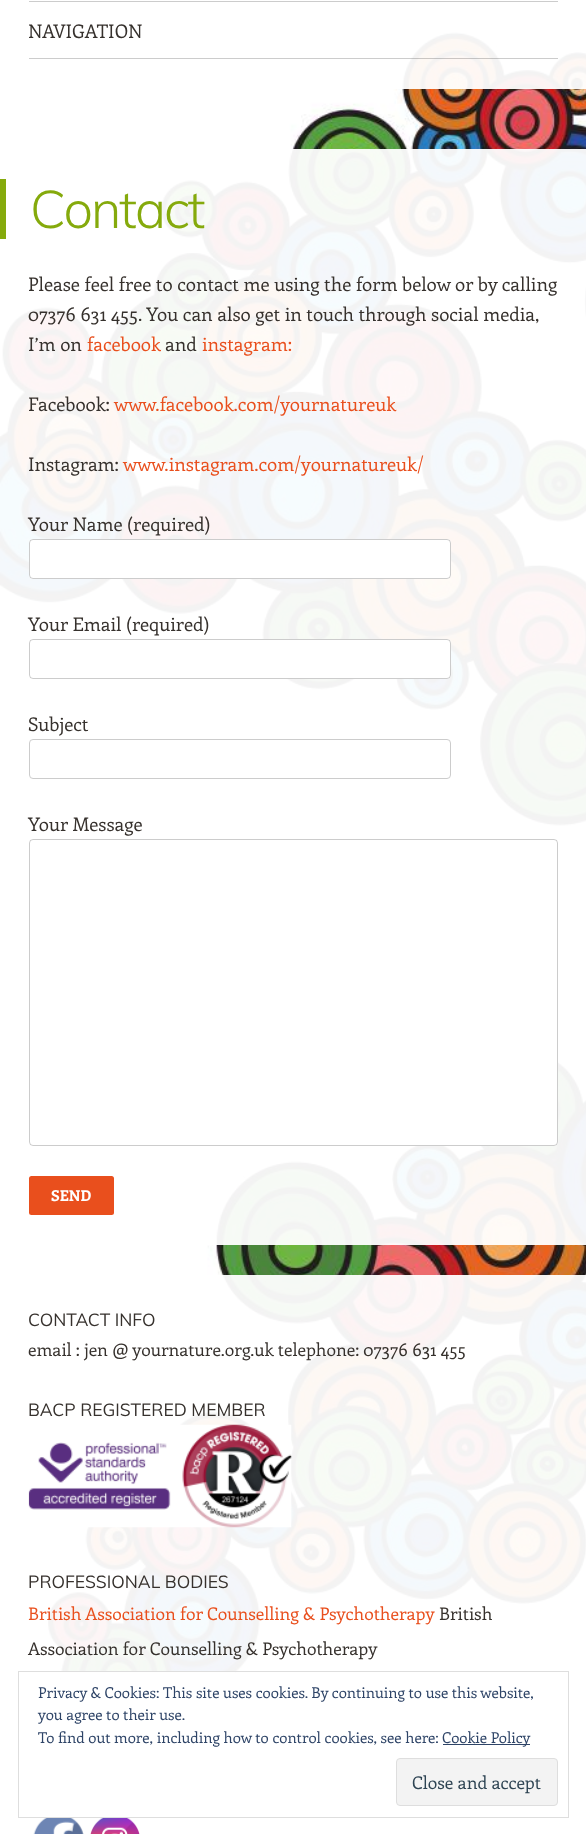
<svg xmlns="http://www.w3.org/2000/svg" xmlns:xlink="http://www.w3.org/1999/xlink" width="586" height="1834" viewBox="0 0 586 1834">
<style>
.cls-1{font:18.75px Enriqueta;fill:#36312d}
.cls-2{font:300 52.5px Muli;letter-spacing:-2px;fill:#85aa0c}
.cls-3{font:18.75px Enriqueta;fill:#e94f1d}
.cls-4{font:bold 15px Enriqueta;fill:#ffffff}
.cls-5{font:17.5px Muli;fill:#36312d}
.cls-6{font:17.5px Enriqueta;fill:#36312d}
.cls-7{font:17.5px Enriqueta;fill:#e94f1d}
.cls-8{font:15px Enriqueta;fill:#2e4467}
.cls-9{font:17.5px Enriqueta;fill:#2e4453}
</style>
<rect width="100%" height="100%" fill="#ffffff"/>
<image xlink:href="image0.png" x="0" y="21" width="586" height="1723"/>
<rect fill="#ffffff" fill-opacity="0.95" x="393" y="21" width="193" height="68"/>
<rect fill="#cccccc" x="29" y="1" width="529" height="1"/>
<rect fill="#000000" fill-opacity="0.2" x="29" y="58" width="529" height="1"/>
<rect fill="#ffffff" fill-opacity="0.95" x="0" y="149" width="586" height="1096"/>
<rect fill="#85aa0c" x="0" y="179" width="6" height="60"/>
<rect fill="#ffffff" x="29" y="539" width="422" height="40" rx="4"/>
<rect fill="none" stroke="#000000" stroke-opacity="0.2" x="29.5" y="539.5" width="421" height="39" rx="3.5"/>
<rect fill="#ffffff" x="29" y="639" width="422" height="40" rx="4"/>
<rect fill="none" stroke="#000000" stroke-opacity="0.2" x="29.5" y="639.5" width="421" height="39" rx="3.5"/>
<rect fill="none" stroke="#cccccc" x="29.5" y="739.5" width="421" height="39" rx="3.5"/>
<rect fill="#ffffff" x="29" y="839" width="529" height="307" rx="4"/>
<rect fill="none" stroke="#000000" stroke-opacity="0.2" x="29.5" y="839.5" width="528" height="306" rx="3.5"/>
<rect fill="#e94f1d" x="29" y="1176" width="85" height="39" rx="2.5"/>
<rect fill="#ffffff" fill-opacity="0.95" x="40" y="1275" width="546" height="469"/>
<image xlink:href="image1.png" x="28" y="1424" width="264" height="104"/>
<image xlink:href="image2.png" x="33" y="1818" width="51" height="16"/>
<image xlink:href="image3.png" x="90" y="1818" width="50" height="16"/>
<rect fill="#ffffff" x="61" y="1672" width="174" height="62"/>
<rect fill="none" stroke="#dedede" x="18.5" y="1671.5" width="550" height="146"/>
<rect fill="#2e4467" x="443" y="1744" width="87" height="1"/>
<rect fill="#f3f3f3" stroke="#dedede" x="396.5" y="1758.5" width="161" height="47" rx="3.5"/>
<text class="cls-1" x="28" y="38">NAVIGATION</text>
<text class="cls-2" x="30" y="228">Contact</text>
<text class="cls-1"><tspan x="28" y="291">Please feel free to contact me using the form below or by calling</tspan><tspan x="28" y="321">07376 631 455. You can also get in touch through social media,</tspan><tspan x="28" y="351">I’m on</tspan></text>
<text class="cls-3" x="87" y="351">facebook</text>
<text class="cls-1" x="165" y="351">and</text>
<text class="cls-3" x="202" y="351">instagram:</text>
<text class="cls-1" x="28" y="411">Facebook:</text>
<text class="cls-3" x="114" y="411">www.facebook.com/yournatureuk</text>
<text class="cls-1" x="28" y="471">Instagram:</text>
<text class="cls-3" x="123" y="471">www.instagram.com/yournatureuk/</text>
<text class="cls-1" x="28" y="531">Your Name (required)</text>
<text class="cls-1" x="28" y="631">Your Email (required)</text>
<text class="cls-1" x="28" y="731">Subject</text>
<text class="cls-1" x="28" y="831">Your Message</text>
<text class="cls-4" x="51" y="1201">SEND</text>
<text class="cls-5" x="28" y="1326">CONTACT INFO</text>
<text class="cls-6" x="28" y="1356">email : jen @ yournature.org.uk telephone: 07376 631 455</text>
<text class="cls-5" x="28" y="1416">BACP REGISTERED MEMBER</text>
<text class="cls-5" x="28" y="1588">PROFESSIONAL BODIES</text>
<text class="cls-7" x="28" y="1620">British Association for Counselling &amp; Psychotherapy</text>
<text class="cls-6" x="439" y="1620">British</text>
<text class="cls-6" x="28" y="1655">Association for Counselling &amp; Psychotherapy</text>
<text class="cls-8"><tspan x="38" y="1698">Privacy &amp; Cookies: This site uses cookies. By continuing to use this website,</tspan><tspan x="38" y="1720">you agree to their use.</tspan><tspan x="38" y="1743">To find out more, including how to control cookies, see here:</tspan></text>
<text class="cls-8" x="442" y="1743">Cookie Policy</text>
<text class="cls-9" x="412" y="1789">Close and accept</text>
</svg>
